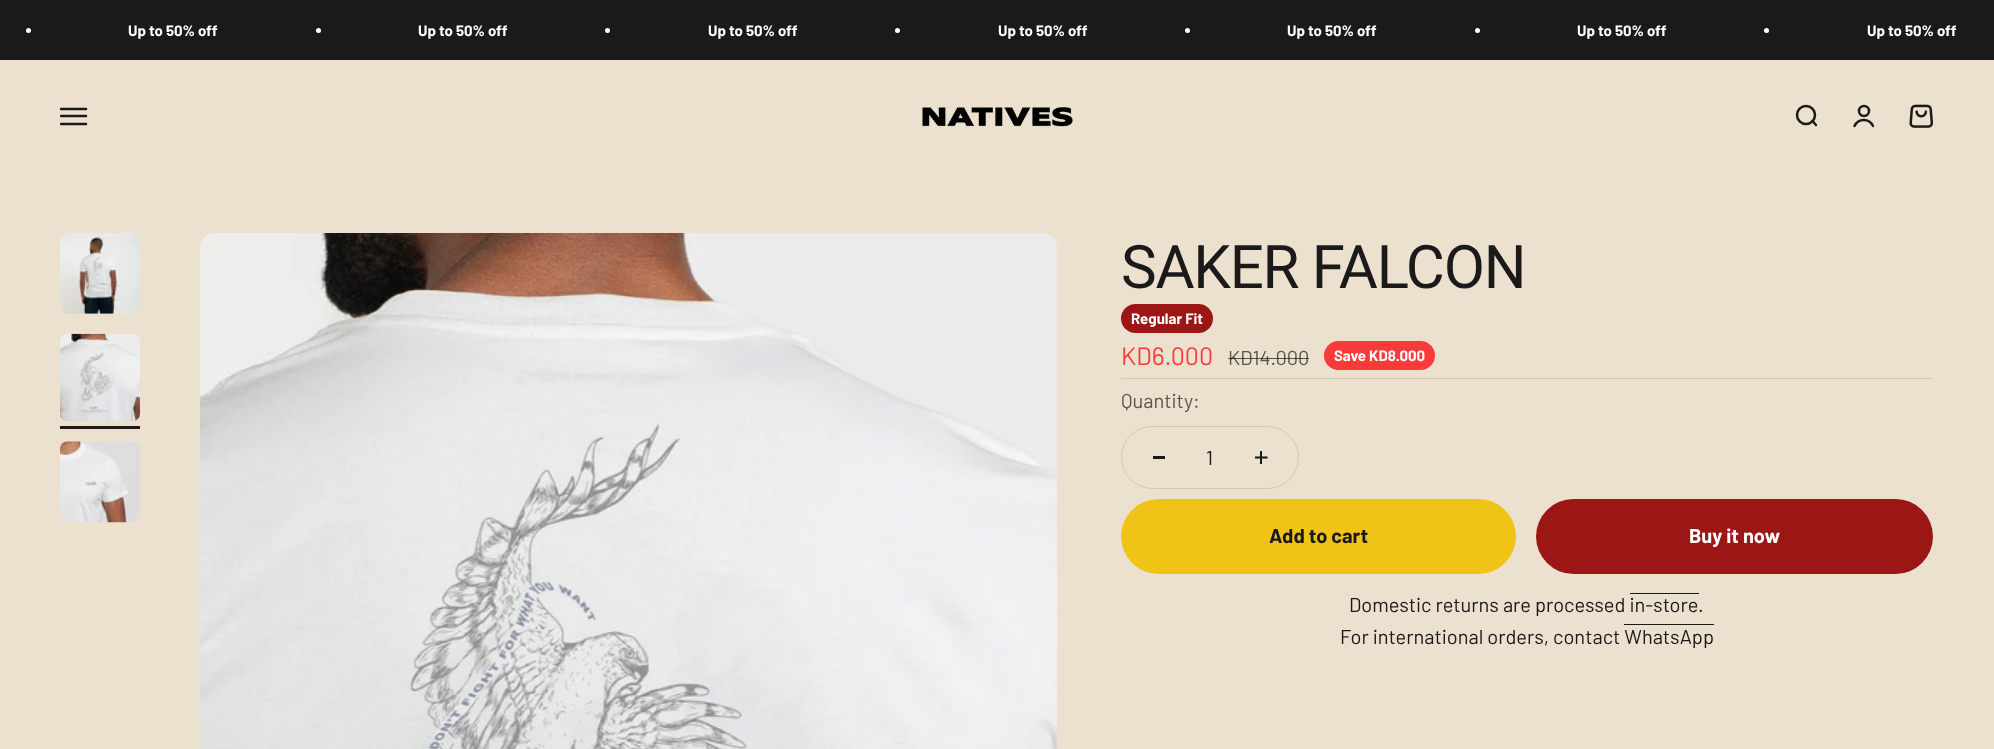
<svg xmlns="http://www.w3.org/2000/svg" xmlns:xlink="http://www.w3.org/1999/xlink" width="1994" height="749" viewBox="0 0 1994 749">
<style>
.cls-1{font:bold 15px Barlow;fill:#ffffff}
.cls-2{font:60px Roboto;letter-spacing:-1.25px;fill:#1a1a1a}
.cls-3{font:25px Barlow;fill:#f83a3a}
.cls-4{font:20px Barlow;fill:#595650}
.cls-5{font:20px Barlow;fill:#1a1a1a}
.cls-6{font:bold 20px Barlow;fill:#1a1a1a}
.cls-7{font:bold 20px Barlow;fill:#ffffff}
</style>
<defs>
<clipPath id="clip1"><rect x="60" y="103" width="28" height="27"/></clipPath>
</defs>
<rect width="100%" height="100%" fill="#ece1ce"/>
<rect fill="#1a1a1a" x="0" y="0" width="1994" height="60"/>
<circle fill="#ffffff" cx="28.5" cy="30.5" r="2.5"/>
<circle fill="#ffffff" cx="318.5" cy="30.5" r="2.5"/>
<circle fill="#ffffff" cx="607.5" cy="30.5" r="2.5"/>
<circle fill="#ffffff" cx="897.5" cy="30.5" r="2.5"/>
<circle fill="#ffffff" cx="1187.5" cy="30.5" r="2.5"/>
<circle fill="#ffffff" cx="1477.5" cy="30.5" r="2.5"/>
<circle fill="#ffffff" cx="1766.5" cy="30.5" r="2.5"/>
<g clip-path="url(#clip1)">
<path fill="none" stroke="#1a1a1a" stroke-width="2.5" stroke-linecap="round" d="M61 109H86M61 116H86M61 124H86"/>
</g>
<image xlink:href="image0.png" x="922" y="107" width="151" height="20"/>
<circle fill="none" stroke="#1a1a1a" stroke-width="2.5" cx="1806" cy="115" r="9"/>
<path fill="none" stroke="#1a1a1a" stroke-width="2.5" stroke-linecap="round" stroke-linejoin="round" d="M1812.5 121L1816 125"/>
<circle fill="none" stroke="#1a1a1a" stroke-width="2.5" cx="1864" cy="111" r="5"/>
<path fill="none" stroke="#1a1a1a" stroke-width="2.5" stroke-linecap="round" d="M1854.5 126C1858.5 118 1869 118 1873 126"/>
<image xlink:href="image1.png" x="1909" y="104" width="24" height="24"/>
<image xlink:href="image2.png" x="60" y="232" width="80" height="82"/>
<image xlink:href="image3.png" x="60" y="333" width="80" height="88"/>
<rect fill="#1a1a1a" x="60" y="426" width="80" height="3"/>
<image xlink:href="image4.png" x="60" y="441" width="80" height="82"/>
<image xlink:href="image5.png" x="200" y="233" width="858" height="516"/>
<rect fill="#9c1616" x="1121" y="304" width="92" height="29" rx="14.5"/>
<rect fill="#f83a3a" x="1324" y="341" width="111" height="29" rx="14.5"/>
<rect fill="#d3c9b8" x="1121" y="378" width="812" height="1"/>
<rect fill="none" stroke="#d3c9b8" x="1121.5" y="426.5" width="177" height="62" rx="31"/>
<rect fill="#1a1a1a" x="1153" y="456" width="12" height="3"/>
<rect fill="#1a1a1a" x="1260" y="451" width="2" height="13"/>
<path fill="none" stroke="#1a1a1a" stroke-width="2.1" d="M1255 457.5H1267.5"/>
<rect fill="#f0c417" x="1121" y="499" width="395" height="75" rx="37.5"/>
<rect fill="#9c1616" x="1536" y="499" width="397" height="75" rx="37.5"/>
<rect fill="#1a1a1a" x="1630" y="593" width="69" height="1"/>
<rect fill="#1a1a1a" x="1624" y="624" width="90" height="1"/>
<text class="cls-1" x="128" y="36">Up to 50% off</text>
<text class="cls-1" x="418" y="36">Up to 50% off</text>
<text class="cls-1" x="708" y="36">Up to 50% off</text>
<text class="cls-1" x="998" y="36">Up to 50% off</text>
<text class="cls-1" x="1287" y="36">Up to 50% off</text>
<text class="cls-1" x="1577" y="36">Up to 50% off</text>
<text class="cls-1" x="1867" y="36">Up to 50% off</text>
<text class="cls-2" x="1121" y="288">SAKER FALCON</text>
<text class="cls-1" x="1131" y="324">Regular Fit</text>
<text class="cls-3" x="1121" y="365">KD6.000</text>
<text class="cls-4" x="1228" y="365">KD14.000</text>
<rect fill="#1a1a1a" fill-opacity="0.7" x="1228" y="358" width="81" height="1"/>
<text class="cls-1" x="1334" y="361">Save KD8.000</text>
<text class="cls-4" x="1121" y="408">Quantity:</text>
<text class="cls-5" x="1206" y="465">1</text>
<text class="cls-6" x="1269" y="543">Add to cart</text>
<text class="cls-7" x="1689" y="543">Buy it now</text>
<text class="cls-5" x="1349" y="612">Domestic returns are processed in-store</text>
<text class="cls-5" x="1698" y="612">.</text>
<text class="cls-5" x="1340" y="644">For international orders, contact WhatsApp</text>
</svg>
